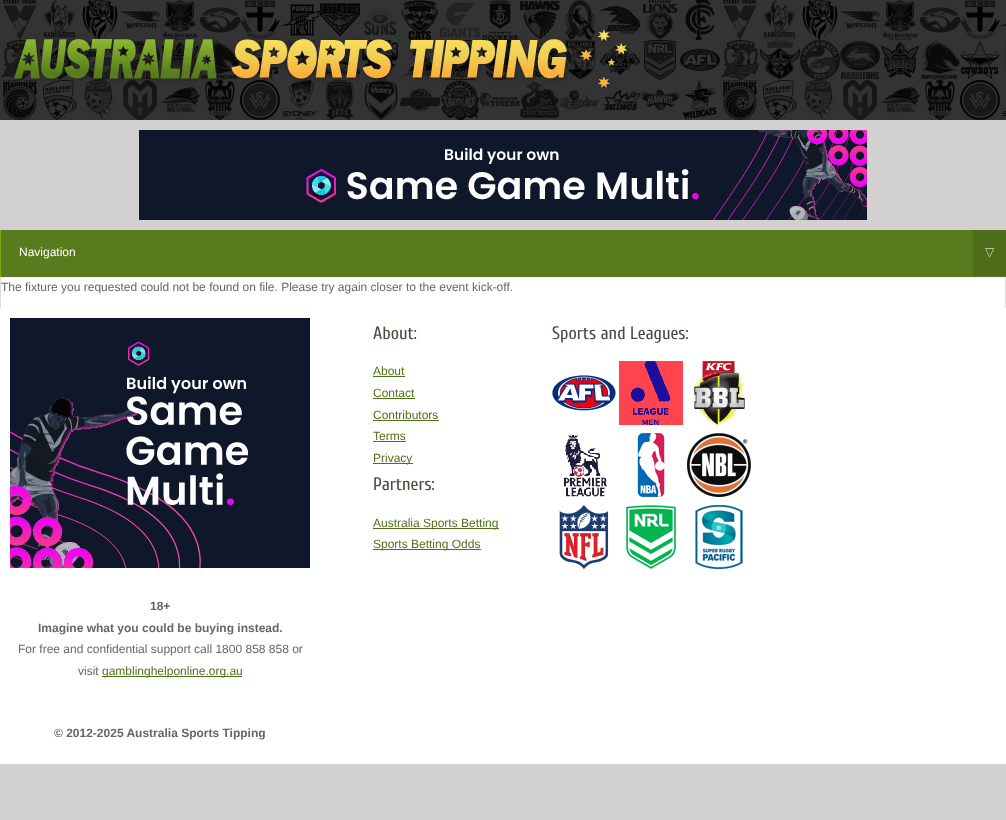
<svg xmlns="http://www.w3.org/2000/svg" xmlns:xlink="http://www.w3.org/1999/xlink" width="1006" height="820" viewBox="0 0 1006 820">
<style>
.cls-1{font:12px Liberation Sans;fill:#ffffff}
.cls-2{font:12px DejaVu Sans;fill:#d3dbc6}
.cls-3{font:12px Liberation Sans;fill:#666666}
.cls-4{font:18px Cuprum;fill:#435141}
.cls-5{font:12px Liberation Sans;fill:#50711a}
.cls-6{font:bold 12px Liberation Sans;fill:#666666}
</style>
<rect width="100%" height="100%" fill="#d2d1d0"/>
<image xlink:href="image0.png" x="0" y="0" width="1006" height="120"/>
<image xlink:href="image1.png" x="14" y="29" width="614" height="59"/>
<image xlink:href="image2.png" x="139" y="130" width="728" height="90"/>
<rect fill="#587c1d" x="1" y="230" width="972" height="46"/>
<rect fill="#75ae12" x="0" y="230" width="1" height="47"/>
<rect fill="#54761c" x="1" y="276" width="1005" height="1"/>
<rect fill="#4d6d19" x="973" y="230" width="33" height="46"/>
<rect fill="#ffffff" x="1" y="277" width="1004" height="31"/>
<rect fill="#dddddd" x="1005" y="277" width="1" height="31"/>
<rect fill="#dddddd" x="0" y="277" width="1" height="31"/>
<rect fill="#ffffff" x="0" y="308" width="1006" height="456"/>
<image xlink:href="image3.png" x="10" y="318" width="300" height="250"/>
<rect fill="#50711a" x="373" y="376" width="32" height="1"/>
<rect fill="#50711a" x="373" y="398" width="42" height="1"/>
<rect fill="#50711a" x="373" y="420" width="66" height="1"/>
<rect fill="#50711a" x="373" y="441" width="33" height="1"/>
<rect fill="#50711a" x="373" y="463" width="40" height="1"/>
<rect fill="#50711a" x="373" y="528" width="126" height="1"/>
<rect fill="#50711a" x="373" y="549" width="108" height="1"/>
<image xlink:href="image4.png" x="552" y="375" width="64" height="36"/>
<image xlink:href="image5.png" x="619" y="361" width="64" height="64"/>
<image xlink:href="image6.png" x="693" y="361" width="52" height="64"/>
<image xlink:href="image7.png" x="564" y="435" width="43" height="62"/>
<image xlink:href="image8.png" x="637" y="433" width="28" height="64"/>
<image xlink:href="image9.png" x="687" y="433" width="64" height="64"/>
<image xlink:href="image10.png" x="559" y="505" width="50" height="64"/>
<image xlink:href="image11.png" x="626" y="505" width="50" height="64"/>
<image xlink:href="image12.png" x="695" y="505" width="48" height="64"/>
<rect fill="#50711a" x="102" y="676" width="140" height="1"/>
<text class="cls-1" x="19" y="256">Navigation</text>
<text class="cls-2" x="985" y="256">▽</text>
<text class="cls-3" x="1" y="291">The fixture you requested could not be found on file. Please try again closer to the event kick-off.</text>
<text class="cls-4" x="373" y="339">About:</text>
<text class="cls-5"><tspan x="373" y="375">About</tspan><tspan x="373" y="397">Contact</tspan><tspan x="373" y="419">Contributors</tspan><tspan x="373" y="440">Terms</tspan><tspan x="373" y="462">Privacy</tspan></text>
<text class="cls-4" x="373" y="490">Partners:</text>
<text class="cls-5"><tspan x="373" y="527">Australia Sports Betting</tspan><tspan x="373" y="548">Sports Betting Odds</tspan></text>
<text class="cls-4" x="552" y="339">Sports and Leagues:</text>
<text class="cls-6" x="150" y="610">18+</text>
<text class="cls-6" x="38" y="632">Imagine what you could be buying instead.</text>
<text class="cls-3" x="18" y="653">For free and confidential support call 1800 858 858 or</text>
<text class="cls-3" x="78" y="675">visit</text>
<text class="cls-5" x="102" y="675">gamblinghelponline.org.au</text>
<text class="cls-6" x="54" y="737">© 2012-2025 Australia Sports Tipping</text>
</svg>
